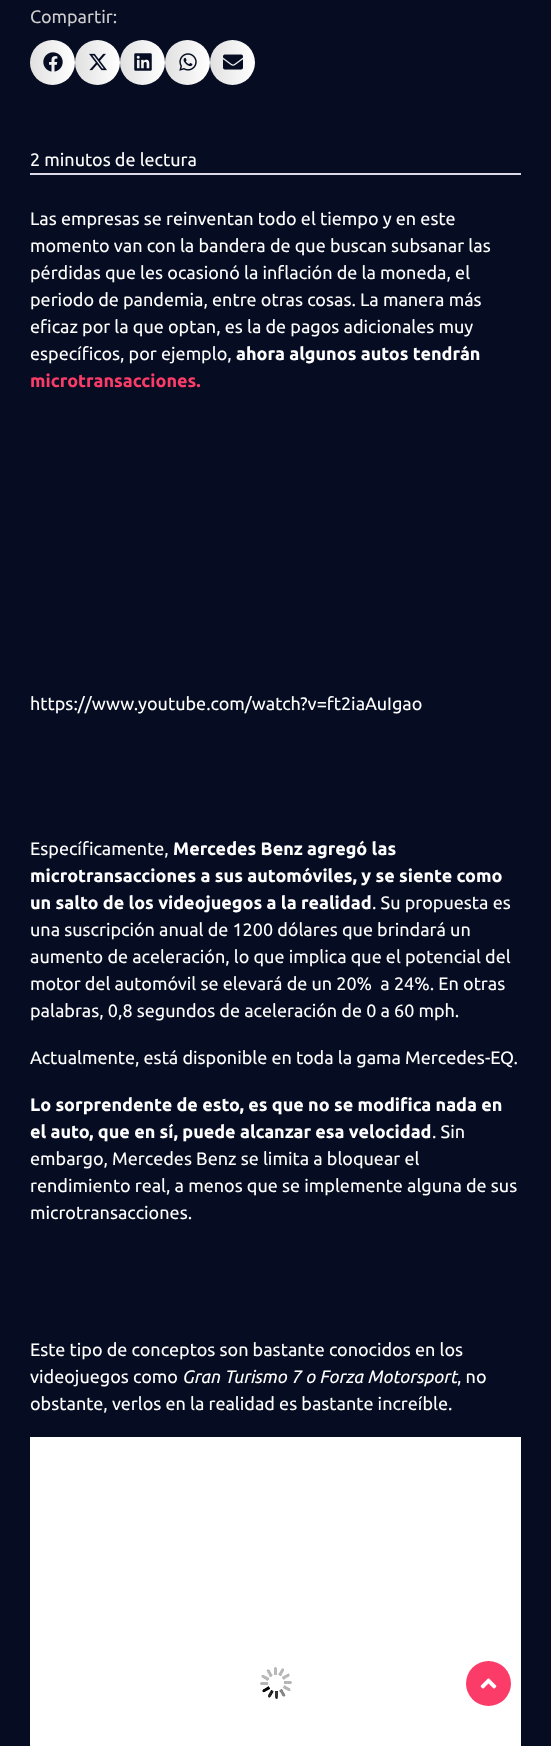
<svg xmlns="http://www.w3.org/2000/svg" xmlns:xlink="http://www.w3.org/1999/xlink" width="551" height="1746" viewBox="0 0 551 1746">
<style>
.cls-1{font:18px Ubuntu;fill:#cdcdcd}
.cls-2{font:18px Ubuntu;fill:#ffffff}
.cls-3{font:bold 18px Ubuntu;fill:#ffffff}
.cls-4{font:bold 18px Ubuntu;fill:#fc3c68}
.cls-5{font:italic 18px Ubuntu;fill:#ffffff}
</style>
<defs>
<linearGradient id="g1" gradientUnits="userSpaceOnUse" x1="30" y1="63" x2="75" y2="63"><stop offset="0" stop-color="#000000" stop-opacity="0.12"/><stop offset="1" stop-color="#000000" stop-opacity="0"/></linearGradient>
<linearGradient id="g2" gradientUnits="userSpaceOnUse" x1="75" y1="63" x2="120" y2="63"><stop offset="0" stop-color="#000000" stop-opacity="0.12"/><stop offset="1" stop-color="#000000" stop-opacity="0"/></linearGradient>
<linearGradient id="g3" gradientUnits="userSpaceOnUse" x1="120" y1="63" x2="165" y2="63"><stop offset="0" stop-color="#000000" stop-opacity="0.12"/><stop offset="1" stop-color="#000000" stop-opacity="0"/></linearGradient>
<linearGradient id="g4" gradientUnits="userSpaceOnUse" x1="165" y1="63" x2="210" y2="63"><stop offset="0" stop-color="#000000" stop-opacity="0.12"/><stop offset="1" stop-color="#000000" stop-opacity="0"/></linearGradient>
<linearGradient id="g5" gradientUnits="userSpaceOnUse" x1="210" y1="63" x2="255" y2="63"><stop offset="0" stop-color="#000000" stop-opacity="0.12"/><stop offset="1" stop-color="#000000" stop-opacity="0"/></linearGradient>
</defs>
<rect width="100%" height="100%" fill="#060c22"/>
<circle fill="#ffffff" cx="52.5" cy="62.5" r="22.5"/>
<circle fill="url(#g1)" cx="52.5" cy="62.5" r="22.5"/>
<image xlink:href="image0.png" x="43" y="52" width="20" height="20"/>
<circle fill="#ffffff" cx="97.5" cy="62.5" r="22.5"/>
<circle fill="url(#g2)" cx="97.5" cy="62.5" r="22.5"/>
<image xlink:href="image1.png" x="89" y="53" width="18" height="18"/>
<circle fill="#ffffff" cx="142.5" cy="62.5" r="22.5"/>
<circle fill="url(#g3)" cx="142.5" cy="62.5" r="22.5"/>
<image xlink:href="image2.png" x="134" y="53" width="18" height="18"/>
<circle fill="#ffffff" cx="187.5" cy="62.5" r="22.5"/>
<circle fill="url(#g4)" cx="187.5" cy="62.5" r="22.5"/>
<image xlink:href="image3.png" x="179" y="53" width="18" height="18"/>
<circle fill="#ffffff" cx="232.5" cy="62.5" r="22.5"/>
<circle fill="url(#g5)" cx="232.5" cy="62.5" r="22.5"/>
<image xlink:href="image4.png" x="223" y="54" width="20" height="16"/>
<rect fill="#dfdaea" x="30" y="173" width="491" height="2"/>
<rect fill="#ffffff" x="30" y="1437" width="491" height="309"/>
<image xlink:href="image5.png" x="260" y="1667" width="32" height="32"/>
<circle fill="#fc3c68" cx="488.5" cy="1683.5" r="22.5"/>
<image xlink:href="image6.png" x="480" y="1678" width="17" height="11"/>
<text class="cls-1" x="30" y="23">Compartir:</text>
<text class="cls-2" x="30" y="166">2 minutos de lectura</text>
<text class="cls-2"><tspan x="30" y="225">Las empresas se reinventan todo el tiempo y en este</tspan><tspan x="30" y="252">momento van con la bandera de que buscan subsanar las</tspan><tspan x="30" y="279">pérdidas que les ocasionó la inflación de la moneda, el</tspan><tspan x="30" y="306">periodo de pandemia, entre otras cosas. La manera más</tspan><tspan x="30" y="333">eficaz por la que optan, es la de pagos adicionales muy</tspan><tspan x="30" y="360">específicos, por ejemplo,</tspan></text>
<text class="cls-3" x="236" y="360">ahora algunos autos tendrán</text>
<text class="cls-4" x="30" y="387">microtransacciones.</text>
<text class="cls-2" x="30" y="710">https://www.youtube.com/watch?v=ft2iaAuIgao</text>
<text class="cls-2" x="30" y="855">Específicamente,</text>
<text class="cls-3" x="173" y="855">Mercedes Benz agregó las</text>
<text class="cls-3"><tspan x="30" y="882">microtransacciones a sus automóviles, y se siente como</tspan><tspan x="30" y="909">un salto de los videojuegos a la realidad</tspan></text>
<text class="cls-2" x="372" y="909">. Su propuesta es</text>
<text class="cls-2" xml:space="preserve"><tspan x="30" y="936">una suscripción anual de 1200 dólares que brindará un</tspan><tspan x="30" y="963">aumento de aceleración, lo que implica que el potencial del</tspan><tspan x="30" y="990">motor del automóvil se elevará de un 20%  a 24%. En otras</tspan><tspan x="30" y="1017">palabras, 0,8 segundos de aceleración de 0 a 60 mph.</tspan></text>
<text class="cls-2" x="30" y="1064">Actualmente, está disponible en toda la gama Mercedes-EQ.</text>
<text class="cls-3"><tspan x="30" y="1111">Lo sorprendente de esto, es que no se modifica nada en</tspan><tspan x="30" y="1138">el auto, que en sí, puede alcanzar esa velocidad</tspan></text>
<text class="cls-2" x="432" y="1138">. Sin</text>
<text class="cls-2"><tspan x="30" y="1165">embargo, Mercedes Benz se limita a bloquear el</tspan><tspan x="30" y="1192">rendimiento real, a menos que se implemente alguna de sus</tspan><tspan x="30" y="1219">microtransacciones.</tspan></text>
<text class="cls-2"><tspan x="30" y="1356">Este tipo de conceptos son bastante conocidos en los</tspan><tspan x="30" y="1383">videojuegos como</tspan></text>
<text class="cls-5" x="182" y="1383">Gran Turismo 7 o Forza Motorsport</text>
<text class="cls-2" x="457" y="1383">, no</text>
<text class="cls-2" x="30" y="1410">obstante, verlos en la realidad es bastante increíble.</text>
</svg>
